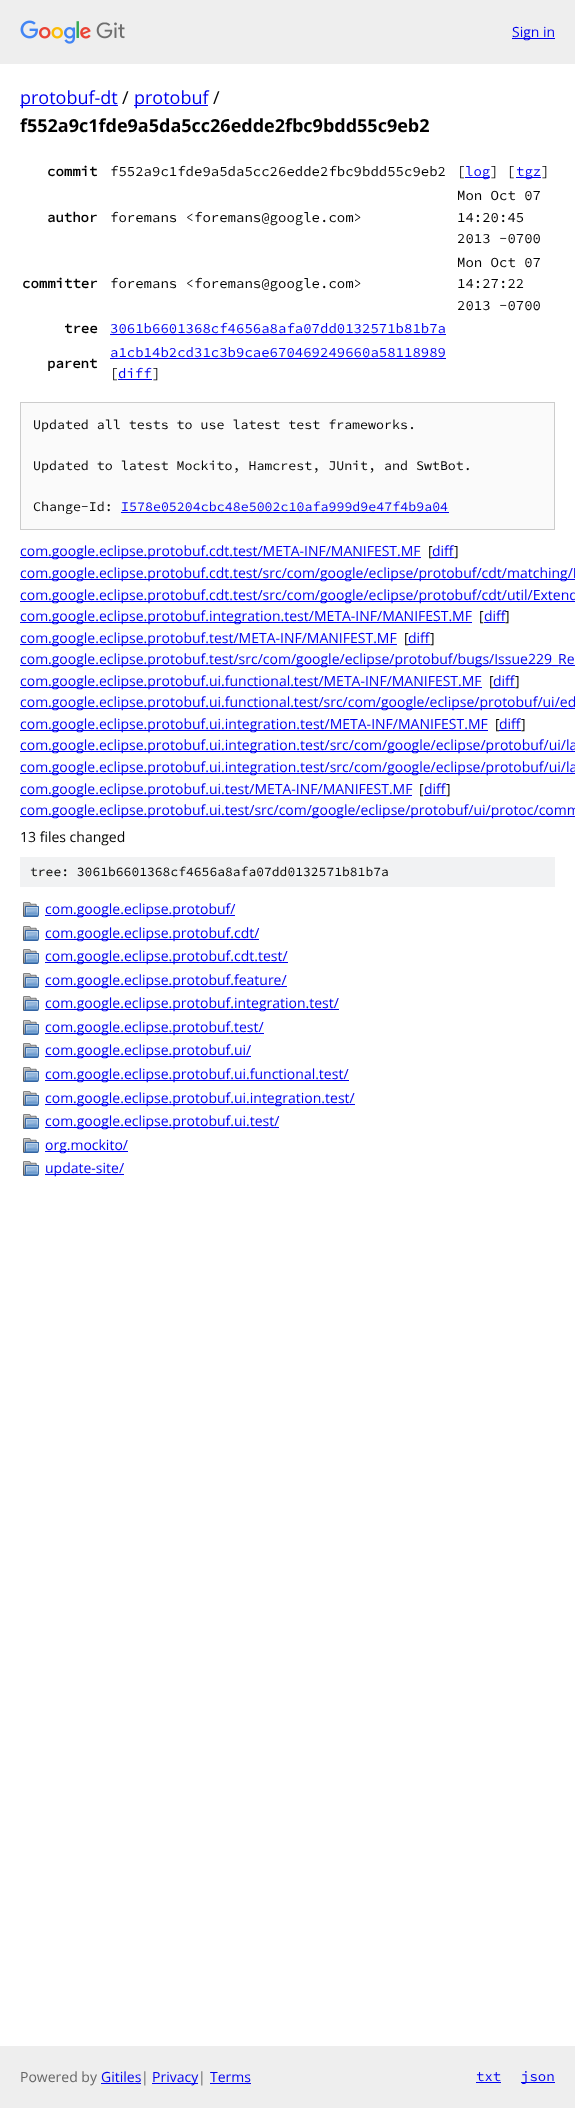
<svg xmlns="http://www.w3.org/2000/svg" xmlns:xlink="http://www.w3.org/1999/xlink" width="575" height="2108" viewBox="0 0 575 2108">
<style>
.cls-1{font:14px Open Sans;fill:#0000ee}
.cls-2{font:18px Open Sans;fill:#0000ee}
.cls-3{font:18px Open Sans;fill:#000000}
.cls-4{font:bold 18px Open Sans;fill:#000000}
.cls-5{font:bold 14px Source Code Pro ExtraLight;fill:#000000}
.cls-6{font:200 14px Source Code Pro ExtraLight;fill:#000000}
.cls-7{font:200 14px Source Code Pro ExtraLight;fill:#0000ee}
.cls-8{font:200 13.3px Source Code Pro ExtraLight;fill:#000000}
.cls-9{font:200 13.3px Source Code Pro ExtraLight;fill:#0000ee}
.cls-10{font:14px Open Sans;fill:#000000}
.cls-11{font:200 13px Source Code Pro ExtraLight;fill:#000000}
.cls-12{font:14px Open Sans;fill:#666666}
</style>
<rect width="100%" height="100%" fill="#ffffff"/>
<rect fill="#eeeeee" x="0" y="0" width="575" height="64"/>
<image xlink:href="image0.png" x="20" y="20" width="105" height="24"/>
<rect fill="#0000ee" x="512" y="38" width="43" height="1"/>
<rect fill="#0000ee" x="20" y="105" width="98" height="1"/>
<rect fill="#0000ee" x="134" y="105" width="74" height="1"/>
<rect fill="#0000ee" x="465" y="177" width="25" height="1"/>
<rect fill="#0000ee" x="516" y="177" width="25" height="1"/>
<rect fill="#0000ee" x="110" y="334" width="336" height="1"/>
<rect fill="#0000ee" x="110" y="358" width="336" height="1"/>
<rect fill="#0000ee" x="118" y="379" width="34" height="1"/>
<rect fill="#fafafa" stroke="#cccccc" x="20.5" y="402.5" width="534" height="127"/>
<rect fill="#0000ee" x="121" y="512" width="328" height="1"/>
<rect fill="#0000ee" x="20" y="557" width="401" height="1"/>
<rect fill="#0000ee" x="432" y="557" width="22" height="1"/>
<rect fill="#0000ee" x="20" y="579" width="555" height="1"/>
<rect fill="#0000ee" x="20" y="601" width="555" height="1"/>
<rect fill="#0000ee" x="20" y="622" width="452" height="1"/>
<rect fill="#0000ee" x="484" y="622" width="21" height="1"/>
<rect fill="#0000ee" x="20" y="644" width="377" height="1"/>
<rect fill="#0000ee" x="408" y="644" width="22" height="1"/>
<rect fill="#0000ee" x="20" y="665" width="555" height="1"/>
<rect fill="#0000ee" x="20" y="687" width="462" height="1"/>
<rect fill="#0000ee" x="493" y="687" width="22" height="1"/>
<rect fill="#0000ee" x="20" y="708" width="555" height="1"/>
<rect fill="#0000ee" x="20" y="730" width="468" height="1"/>
<rect fill="#0000ee" x="499" y="730" width="22" height="1"/>
<rect fill="#0000ee" x="20" y="751" width="555" height="1"/>
<rect fill="#0000ee" x="20" y="773" width="555" height="1"/>
<rect fill="#0000ee" x="20" y="795" width="392" height="1"/>
<rect fill="#0000ee" x="424" y="795" width="22" height="1"/>
<rect fill="#0000ee" x="20" y="816" width="555" height="1"/>
<rect fill="#f1f2f3" x="20" y="857" width="535" height="30"/>
<image xlink:href="image1.png" x="23" y="902" width="16" height="15"/>
<rect fill="#0000ee" x="45" y="915" width="190" height="1"/>
<image xlink:href="image1.png" x="23" y="926" width="16" height="15"/>
<rect fill="#0000ee" x="45" y="939" width="214" height="1"/>
<image xlink:href="image1.png" x="23" y="949" width="16" height="15"/>
<rect fill="#0000ee" x="45" y="962" width="243" height="1"/>
<image xlink:href="image1.png" x="23" y="973" width="16" height="15"/>
<rect fill="#0000ee" x="45" y="986" width="242" height="1"/>
<image xlink:href="image1.png" x="23" y="996" width="16" height="15"/>
<rect fill="#0000ee" x="45" y="1009" width="294" height="1"/>
<image xlink:href="image1.png" x="23" y="1020" width="16" height="15"/>
<rect fill="#0000ee" x="45" y="1033" width="219" height="1"/>
<image xlink:href="image1.png" x="23" y="1043" width="16" height="15"/>
<rect fill="#0000ee" x="45" y="1056" width="206" height="1"/>
<image xlink:href="image1.png" x="23" y="1067" width="16" height="15"/>
<rect fill="#0000ee" x="45" y="1080" width="304" height="1"/>
<image xlink:href="image1.png" x="23" y="1091" width="16" height="15"/>
<rect fill="#0000ee" x="45" y="1104" width="310" height="1"/>
<image xlink:href="image1.png" x="23" y="1114" width="16" height="15"/>
<rect fill="#0000ee" x="45" y="1127" width="234" height="1"/>
<image xlink:href="image1.png" x="23" y="1138" width="16" height="15"/>
<rect fill="#0000ee" x="45" y="1151" width="83" height="1"/>
<image xlink:href="image1.png" x="23" y="1161" width="16" height="15"/>
<rect fill="#0000ee" x="45" y="1174" width="79" height="1"/>
<rect fill="#eeeeee" x="0" y="2046" width="575" height="62"/>
<rect fill="#0000ee" x="101" y="2083" width="40" height="1"/>
<rect fill="#0000ee" x="152" y="2083" width="46" height="1"/>
<rect fill="#0000ee" x="210" y="2083" width="41" height="1"/>
<rect fill="#0000ee" x="476" y="2082" width="25" height="1"/>
<rect fill="#0000ee" x="521" y="2082" width="34" height="1"/>
<text class="cls-1" x="512" y="37">Sign in</text>
<text class="cls-2" x="20" y="104">protobuf-dt</text>
<text class="cls-3" x="122" y="104">/</text>
<text class="cls-2" x="134" y="104">protobuf</text>
<text class="cls-3" x="213" y="104">/</text>
<text class="cls-4" x="20" y="132">f552a9c1fde9a5da5cc26edde2fbc9bdd55c9eb2</text>
<text class="cls-5" x="47" y="176">commit</text>
<text class="cls-6" x="110" y="176">f552a9c1fde9a5da5cc26edde2fbc9bdd55c9eb2</text>
<text class="cls-6" x="457" y="176">[</text>
<text class="cls-7" x="465" y="176">log</text>
<text class="cls-6" x="490" y="176">] [</text>
<text class="cls-7" x="516" y="176">tgz</text>
<text class="cls-6" x="541" y="176">]</text>
<text class="cls-5" x="47" y="222">author</text>
<text class="cls-6" x="110" y="222">foremans &lt;foremans@google.com&gt;</text>
<text class="cls-6"><tspan x="457" y="200">Mon Oct 07</tspan><tspan x="457" y="222">14:20:45</tspan><tspan x="457" y="243">2013 -0700</tspan></text>
<text class="cls-5" x="22" y="288">committer</text>
<text class="cls-6" x="110" y="288">foremans &lt;foremans@google.com&gt;</text>
<text class="cls-6"><tspan x="457" y="267">Mon Oct 07</tspan><tspan x="457" y="288">14:27:22</tspan><tspan x="457" y="310">2013 -0700</tspan></text>
<text class="cls-5" x="64" y="333">tree</text>
<text class="cls-7" x="110" y="333">3061b6601368cf4656a8afa07dd0132571b81b7a</text>
<text class="cls-5" x="47" y="368">parent</text>
<text class="cls-7" x="110" y="357">a1cb14b2cd31c3b9cae670469249660a58118989</text>
<text class="cls-6" x="110" y="378">[</text>
<text class="cls-7" x="118" y="378">diff</text>
<text class="cls-6" x="152" y="378">]</text>
<text class="cls-8" x="33" y="429">Updated all tests to use latest test frameworks.</text>
<text class="cls-8" x="33" y="470">Updated to latest Mockito, Hamcrest, JUnit, and SwtBot.</text>
<text class="cls-8" x="33" y="511">Change-Id:</text>
<text class="cls-9" x="121" y="511">I578e05204cbc48e5002c10afa999d9e47f4b9a04</text>
<text class="cls-1" x="20" y="556">com.google.eclipse.protobuf.cdt.test/META-INF/MANIFEST.MF</text>
<text class="cls-10" x="428" y="556">[</text>
<text class="cls-1" x="432" y="556">diff</text>
<text class="cls-10" x="454" y="556">]</text>
<text class="cls-1"><tspan x="20" y="578">com.google.eclipse.protobuf.cdt.test/src/com/google/eclipse/protobuf/cdt/matching/M</tspan><tspan x="20" y="600">com.google.eclipse.protobuf.cdt.test/src/com/google/eclipse/protobuf/cdt/util/Extend</tspan><tspan x="20" y="621">com.google.eclipse.protobuf.integration.test/META-INF/MANIFEST.MF</tspan></text>
<text class="cls-10" x="479" y="621">[</text>
<text class="cls-1" x="484" y="621">diff</text>
<text class="cls-10" x="505" y="621">]</text>
<text class="cls-1" x="20" y="643">com.google.eclipse.protobuf.test/META-INF/MANIFEST.MF</text>
<text class="cls-10" x="404" y="643">[</text>
<text class="cls-1" x="408" y="643">diff</text>
<text class="cls-10" x="430" y="643">]</text>
<text class="cls-1"><tspan x="20" y="664">com.google.eclipse.protobuf.test/src/com/google/eclipse/protobuf/bugs/Issue229_Re</tspan><tspan x="20" y="686">com.google.eclipse.protobuf.ui.functional.test/META-INF/MANIFEST.MF</tspan></text>
<text class="cls-10" x="489" y="686">[</text>
<text class="cls-1" x="493" y="686">diff</text>
<text class="cls-10" x="515" y="686">]</text>
<text class="cls-1"><tspan x="20" y="707">com.google.eclipse.protobuf.ui.functional.test/src/com/google/eclipse/protobuf/ui/ed</tspan><tspan x="20" y="729">com.google.eclipse.protobuf.ui.integration.test/META-INF/MANIFEST.MF</tspan></text>
<text class="cls-10" x="495" y="729">[</text>
<text class="cls-1" x="499" y="729">diff</text>
<text class="cls-10" x="521" y="729">]</text>
<text class="cls-1"><tspan x="20" y="750">com.google.eclipse.protobuf.ui.integration.test/src/com/google/eclipse/protobuf/ui/la</tspan><tspan x="20" y="772">com.google.eclipse.protobuf.ui.integration.test/src/com/google/eclipse/protobuf/ui/la</tspan><tspan x="20" y="794">com.google.eclipse.protobuf.ui.test/META-INF/MANIFEST.MF</tspan></text>
<text class="cls-10" x="419" y="794">[</text>
<text class="cls-1" x="424" y="794">diff</text>
<text class="cls-10" x="446" y="794">]</text>
<text class="cls-1" x="20" y="815">com.google.eclipse.protobuf.ui.test/src/com/google/eclipse/protobuf/ui/protoc/comm</text>
<text class="cls-10" x="20" y="842">13 files changed</text>
<text class="cls-11" x="30" y="876">tree: 3061b6601368cf4656a8afa07dd0132571b81b7a</text>
<text class="cls-1"><tspan x="45" y="914">com.google.eclipse.protobuf/</tspan><tspan x="45" y="938">com.google.eclipse.protobuf.cdt/</tspan><tspan x="45" y="961">com.google.eclipse.protobuf.cdt.test/</tspan><tspan x="45" y="985">com.google.eclipse.protobuf.feature/</tspan><tspan x="45" y="1008">com.google.eclipse.protobuf.integration.test/</tspan><tspan x="45" y="1032">com.google.eclipse.protobuf.test/</tspan><tspan x="45" y="1055">com.google.eclipse.protobuf.ui/</tspan><tspan x="45" y="1079">com.google.eclipse.protobuf.ui.functional.test/</tspan><tspan x="45" y="1103">com.google.eclipse.protobuf.ui.integration.test/</tspan><tspan x="45" y="1126">com.google.eclipse.protobuf.ui.test/</tspan><tspan x="45" y="1150">org.mockito/</tspan><tspan x="45" y="1173">update-site/</tspan></text>
<text class="cls-12" x="20" y="2082">Powered by</text>
<text class="cls-1" x="101" y="2082">Gitiles</text>
<text class="cls-12" x="141" y="2082">|</text>
<text class="cls-1" x="152" y="2082">Privacy</text>
<text class="cls-12" x="198" y="2082">|</text>
<text class="cls-1" x="210" y="2082">Terms</text>
<text class="cls-7" x="476" y="2081">txt</text>
<text class="cls-7" x="521" y="2081">json</text>
</svg>
